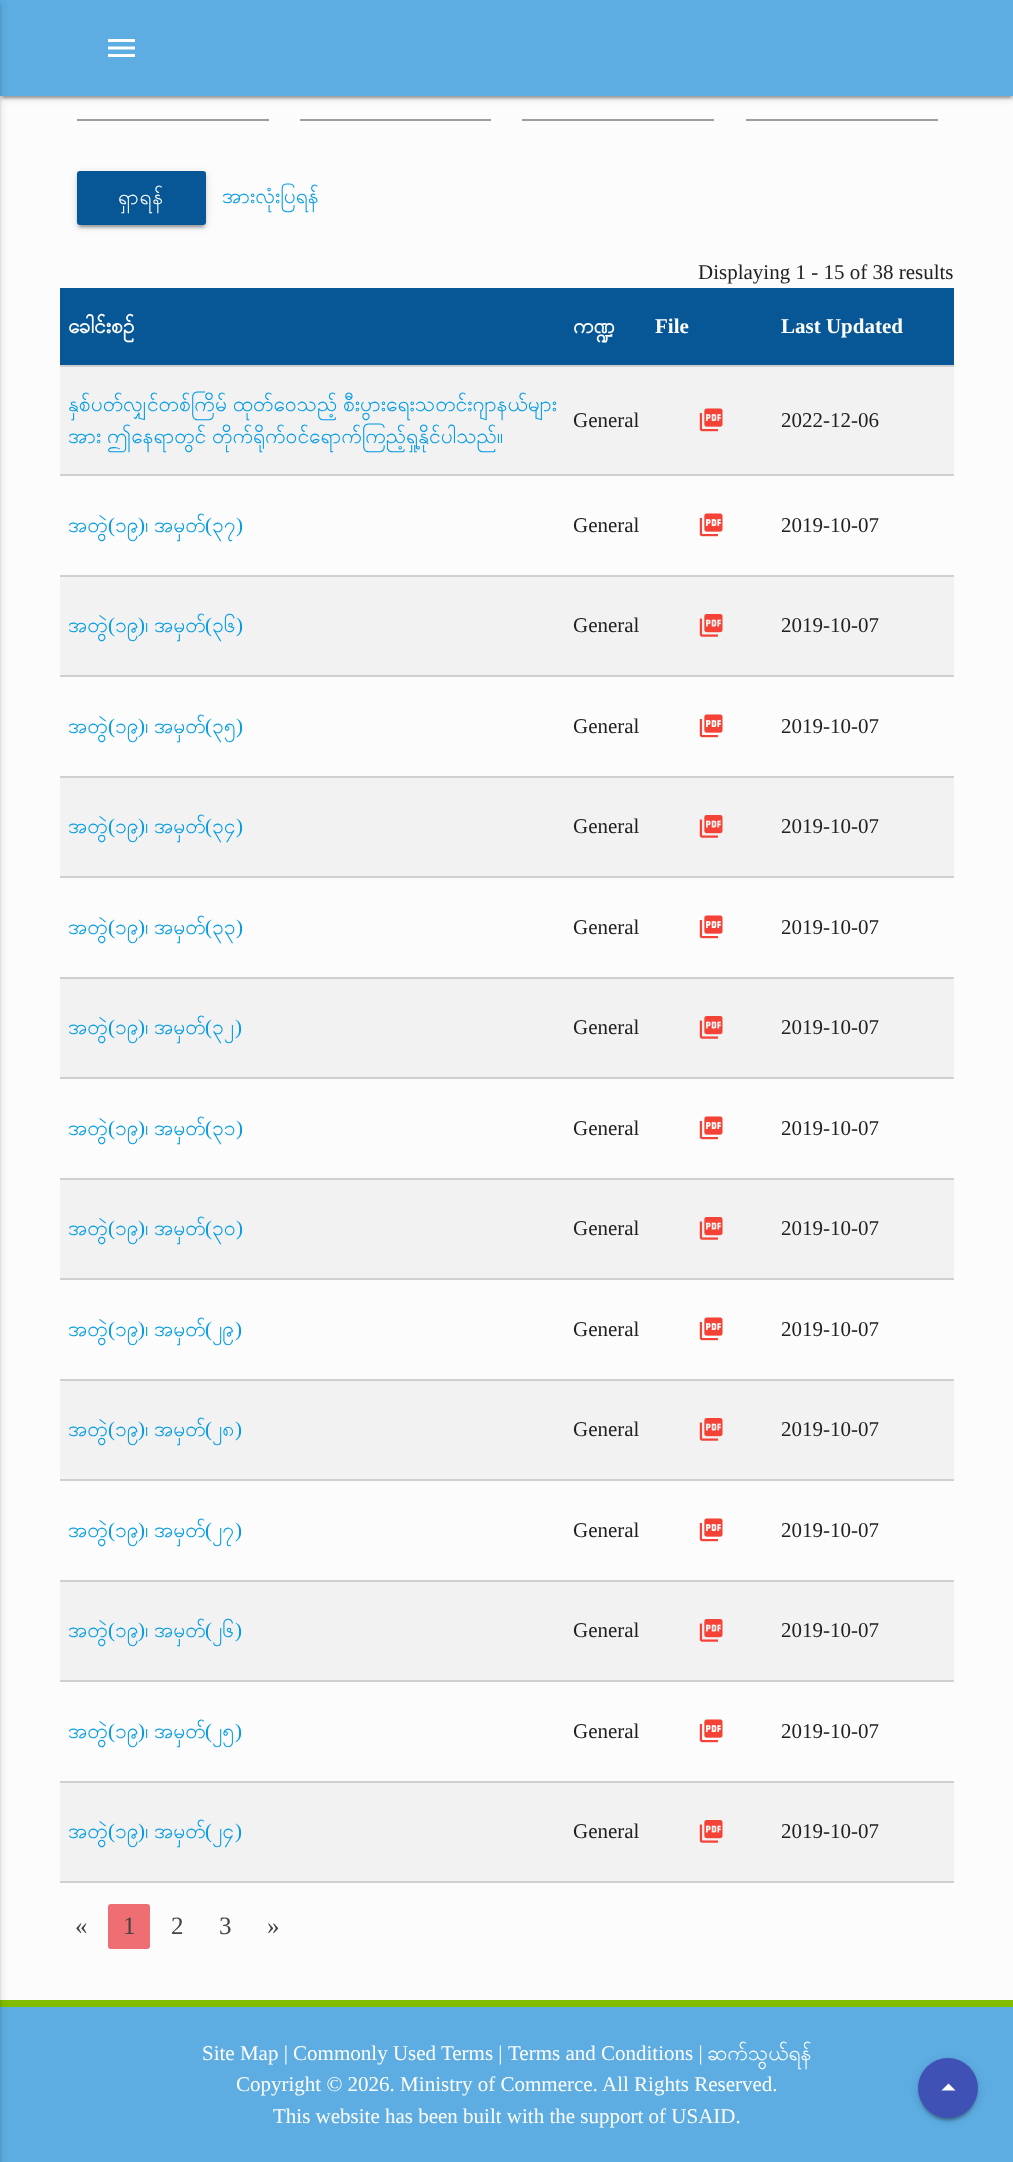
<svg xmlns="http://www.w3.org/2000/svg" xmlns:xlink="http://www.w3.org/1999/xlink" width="1013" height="2162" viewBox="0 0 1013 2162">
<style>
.cls-1{font:21px Padauk;letter-spacing:0.75px;fill:#ffffff}
.cls-2{font:21px Padauk;fill:#039be5}
.cls-3{font:21px Liberation Serif;fill:#212121}
.cls-4{font:bold 21px Padauk;fill:#ffffff}
.cls-5{font:bold 21px Liberation Serif;fill:#ffffff}
.cls-6{font:21px Liberation Serif;fill:#039be5}
.cls-7{font:25px Liberation Serif;fill:#444444}
.cls-8{font:21px Liberation Serif;fill:#ffffff}
.cls-9{font:21px Padauk;fill:#ffffff}
</style>
<rect width="100%" height="100%" fill="#fcfcfc"/>
<rect fill="#000000" fill-opacity="0.2" filter="blur(1px)" x="3" y="8" width="1008" height="90"/>
<rect fill="#000000" fill-opacity="0.12" filter="blur(4px)" x="0" y="2" width="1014" height="96"/>
<rect fill="#000000" fill-opacity="0.14" filter="blur(1.5px)" x="0" y="3" width="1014" height="96"/>
<rect fill="#5dade2" x="0" y="0" width="1013" height="96"/>
<rect fill="#5dade2" x="0" y="2007" width="1013" height="155"/>
<rect fill="#82bd01" x="0" y="2000" width="1013" height="7"/>
<rect fill="#000000" fill-opacity="0.12" filter="blur(4px)" x="-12" y="2" width="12" height="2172"/>
<rect fill="#000000" fill-opacity="0.14" filter="blur(1.5px)" x="-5" y="3" width="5" height="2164"/>
<image xlink:href="image0.png" x="108" y="39" width="27" height="18"/>
<rect fill="#9e9e9e" x="77" y="119" width="192" height="2"/>
<rect fill="#9e9e9e" x="300" y="119" width="191" height="2"/>
<rect fill="#9e9e9e" x="522" y="119" width="192" height="2"/>
<rect fill="#9e9e9e" x="746" y="119" width="192" height="2"/>
<rect fill="#000000" fill-opacity="0.2" filter="blur(1px)" x="80" y="179" width="123" height="48"/>
<rect fill="#000000" fill-opacity="0.12" filter="blur(4px)" x="77" y="173" width="129" height="54" rx="3"/>
<rect fill="#000000" fill-opacity="0.14" filter="blur(1.5px)" x="77" y="174" width="129" height="54" rx="3"/>
<rect fill="#075797" x="77" y="171" width="129" height="54" rx="3"/>
<rect fill="#075797" x="60" y="288" width="894" height="77"/>
<rect fill="#d0d0d0" x="60" y="365" width="894" height="2"/>
<rect fill="#f2f2f2" x="60" y="367" width="894" height="107"/>
<rect fill="#d0d0d0" x="60" y="474" width="894" height="2"/>
<image xlink:href="image1.png" x="699" y="408" width="24" height="24"/>
<rect fill="#d0d0d0" x="60" y="575" width="894" height="2"/>
<image xlink:href="image2.png" x="699" y="513" width="24" height="24"/>
<rect fill="#f2f2f2" x="60" y="577" width="894" height="98"/>
<rect fill="#d0d0d0" x="60" y="675" width="894" height="2"/>
<image xlink:href="image3.png" x="699" y="614" width="24" height="23"/>
<rect fill="#d0d0d0" x="60" y="776" width="894" height="2"/>
<image xlink:href="image2.png" x="699" y="714" width="24" height="24"/>
<rect fill="#f2f2f2" x="60" y="778" width="894" height="98"/>
<rect fill="#d0d0d0" x="60" y="876" width="894" height="2"/>
<image xlink:href="image3.png" x="699" y="815" width="24" height="23"/>
<rect fill="#d0d0d0" x="60" y="977" width="894" height="2"/>
<image xlink:href="image2.png" x="699" y="915" width="24" height="24"/>
<rect fill="#f2f2f2" x="60" y="979" width="894" height="98"/>
<rect fill="#d0d0d0" x="60" y="1077" width="894" height="2"/>
<image xlink:href="image3.png" x="699" y="1016" width="24" height="23"/>
<rect fill="#d0d0d0" x="60" y="1178" width="894" height="2"/>
<image xlink:href="image2.png" x="699" y="1116" width="24" height="24"/>
<rect fill="#f2f2f2" x="60" y="1180" width="894" height="98"/>
<rect fill="#d0d0d0" x="60" y="1278" width="894" height="2"/>
<image xlink:href="image3.png" x="699" y="1217" width="24" height="23"/>
<rect fill="#d0d0d0" x="60" y="1379" width="894" height="2"/>
<image xlink:href="image2.png" x="699" y="1317" width="24" height="24"/>
<rect fill="#f2f2f2" x="60" y="1381" width="894" height="98"/>
<rect fill="#d0d0d0" x="60" y="1479" width="894" height="2"/>
<image xlink:href="image3.png" x="699" y="1418" width="24" height="23"/>
<rect fill="#d0d0d0" x="60" y="1580" width="894" height="2"/>
<image xlink:href="image2.png" x="699" y="1518" width="24" height="24"/>
<rect fill="#f2f2f2" x="60" y="1582" width="894" height="98"/>
<rect fill="#d0d0d0" x="60" y="1680" width="894" height="2"/>
<image xlink:href="image3.png" x="699" y="1619" width="24" height="23"/>
<rect fill="#d0d0d0" x="60" y="1781" width="894" height="2"/>
<image xlink:href="image2.png" x="699" y="1719" width="24" height="24"/>
<rect fill="#f2f2f2" x="60" y="1783" width="894" height="98"/>
<rect fill="#d0d0d0" x="60" y="1881" width="894" height="2"/>
<image xlink:href="image3.png" x="699" y="1820" width="24" height="23"/>
<rect fill="#ee6e73" x="108" y="1904" width="42" height="45" rx="3"/>
<rect fill="#000000" fill-opacity="0.2" filter="blur(1px)" x="921" y="2066" width="54" height="54" rx="27"/>
<rect fill="#000000" fill-opacity="0.12" filter="blur(4px)" x="918" y="2060" width="60" height="60" rx="30"/>
<rect fill="#000000" fill-opacity="0.14" filter="blur(1.5px)" x="918" y="2061" width="60" height="60" rx="30"/>
<circle fill="#3f51b5" cx="948" cy="2088" r="30"/>
<path fill="#ffffff" d="M941.5 2090.5L948.5 2083.5L955.5 2090.5Z"/>
<text class="cls-1" x="118" y="204">ရှာရန်</text>
<text class="cls-2" x="222" y="203">အားလုံးပြရန်</text>
<text class="cls-3" x="698" y="279">Displaying 1 - 15 of 38 results</text>
<text class="cls-4" x="68" y="333">ခေါင်းစဉ်</text>
<text class="cls-4" x="573" y="333">ကဏ္ဍ</text>
<text class="cls-5" x="655" y="333">File</text>
<text class="cls-5" x="781" y="333">Last Updated</text>
<text class="cls-2"><tspan x="68" y="411" word-spacing="-2">နှစ်ပတ်လျှင်တစ်ကြိမ် ထုတ်ဝေသည့် စီးပွားရေးသတင်းဂျာနယ်များ</tspan><tspan x="68" y="443" word-spacing="-2">အား ဤနေရာတွင် တိုက်ရိုက်ဝင်ရောက်ကြည့်ရှု့နိုင်ပါသည်။</tspan></text>
<text class="cls-3" x="573" y="427">General</text>
<text class="cls-3" x="781" y="427">2022-12-06</text>
<text class="cls-2" x="68" y="532">အတွဲ</text>
<text class="cls-6" x="108" y="532">(</text>
<text class="cls-2" x="115" y="532">၁၉</text>
<text class="cls-6" x="138" y="532">)</text>
<text class="cls-2" x="145" y="532" word-spacing="-2">၊ အမှတ်</text>
<text class="cls-6" x="205" y="532">(</text>
<text class="cls-2" x="212" y="532">၃၇</text>
<text class="cls-6" x="236" y="532">)</text>
<text class="cls-3" x="573" y="532">General</text>
<text class="cls-3" x="781" y="532">2019-10-07</text>
<text class="cls-2" x="68" y="632">အတွဲ</text>
<text class="cls-6" x="108" y="632">(</text>
<text class="cls-2" x="115" y="632">၁၉</text>
<text class="cls-6" x="138" y="632">)</text>
<text class="cls-2" x="145" y="632" word-spacing="-2">၊ အမှတ်</text>
<text class="cls-6" x="205" y="632">(</text>
<text class="cls-2" x="212" y="632">၃၆</text>
<text class="cls-6" x="236" y="632">)</text>
<text class="cls-3" x="573" y="632">General</text>
<text class="cls-3" x="781" y="632">2019-10-07</text>
<text class="cls-2" x="68" y="733">အတွဲ</text>
<text class="cls-6" x="108" y="733">(</text>
<text class="cls-2" x="115" y="733">၁၉</text>
<text class="cls-6" x="138" y="733">)</text>
<text class="cls-2" x="145" y="733" word-spacing="-2">၊ အမှတ်</text>
<text class="cls-6" x="205" y="733">(</text>
<text class="cls-2" x="212" y="733">၃၅</text>
<text class="cls-6" x="236" y="733">)</text>
<text class="cls-3" x="573" y="733">General</text>
<text class="cls-3" x="781" y="733">2019-10-07</text>
<text class="cls-2" x="68" y="833">အတွဲ</text>
<text class="cls-6" x="108" y="833">(</text>
<text class="cls-2" x="115" y="833">၁၉</text>
<text class="cls-6" x="138" y="833">)</text>
<text class="cls-2" x="145" y="833" word-spacing="-2">၊ အမှတ်</text>
<text class="cls-6" x="205" y="833">(</text>
<text class="cls-2" x="212" y="833">၃၄</text>
<text class="cls-6" x="236" y="833">)</text>
<text class="cls-3" x="573" y="833">General</text>
<text class="cls-3" x="781" y="833">2019-10-07</text>
<text class="cls-2" x="68" y="934">အတွဲ</text>
<text class="cls-6" x="108" y="934">(</text>
<text class="cls-2" x="115" y="934">၁၉</text>
<text class="cls-6" x="138" y="934">)</text>
<text class="cls-2" x="145" y="934" word-spacing="-2">၊ အမှတ်</text>
<text class="cls-6" x="205" y="934">(</text>
<text class="cls-2" x="212" y="934">၃၃</text>
<text class="cls-6" x="236" y="934">)</text>
<text class="cls-3" x="573" y="934">General</text>
<text class="cls-3" x="781" y="934">2019-10-07</text>
<text class="cls-2" x="68" y="1034">အတွဲ</text>
<text class="cls-6" x="108" y="1034">(</text>
<text class="cls-2" x="115" y="1034">၁၉</text>
<text class="cls-6" x="138" y="1034">)</text>
<text class="cls-2" x="145" y="1034" word-spacing="-2">၊ အမှတ်</text>
<text class="cls-6" x="205" y="1034">(</text>
<text class="cls-2" x="212" y="1034">၃၂</text>
<text class="cls-6" x="235" y="1034">)</text>
<text class="cls-3" x="573" y="1034">General</text>
<text class="cls-3" x="781" y="1034">2019-10-07</text>
<text class="cls-2" x="68" y="1135">အတွဲ</text>
<text class="cls-6" x="108" y="1135">(</text>
<text class="cls-2" x="115" y="1135">၁၉</text>
<text class="cls-6" x="138" y="1135">)</text>
<text class="cls-2" x="145" y="1135" word-spacing="-2">၊ အမှတ်</text>
<text class="cls-6" x="205" y="1135">(</text>
<text class="cls-2" x="212" y="1135">၃၁</text>
<text class="cls-6" x="236" y="1135">)</text>
<text class="cls-3" x="573" y="1135">General</text>
<text class="cls-3" x="781" y="1135">2019-10-07</text>
<text class="cls-2" x="68" y="1235">အတွဲ</text>
<text class="cls-6" x="108" y="1235">(</text>
<text class="cls-2" x="115" y="1235">၁၉</text>
<text class="cls-6" x="138" y="1235">)</text>
<text class="cls-2" x="145" y="1235" word-spacing="-2">၊ အမှတ်</text>
<text class="cls-6" x="205" y="1235">(</text>
<text class="cls-2" x="212" y="1235">၃၀</text>
<text class="cls-6" x="236" y="1235">)</text>
<text class="cls-3" x="573" y="1235">General</text>
<text class="cls-3" x="781" y="1235">2019-10-07</text>
<text class="cls-2" x="68" y="1336">အတွဲ</text>
<text class="cls-6" x="108" y="1336">(</text>
<text class="cls-2" x="115" y="1336">၁၉</text>
<text class="cls-6" x="138" y="1336">)</text>
<text class="cls-2" x="145" y="1336" word-spacing="-2">၊ အမှတ်</text>
<text class="cls-6" x="205" y="1336">(</text>
<text class="cls-2" x="212" y="1336">၂၉</text>
<text class="cls-6" x="235" y="1336">)</text>
<text class="cls-3" x="573" y="1336">General</text>
<text class="cls-3" x="781" y="1336">2019-10-07</text>
<text class="cls-2" x="68" y="1436">အတွဲ</text>
<text class="cls-6" x="108" y="1436">(</text>
<text class="cls-2" x="115" y="1436">၁၉</text>
<text class="cls-6" x="138" y="1436">)</text>
<text class="cls-2" x="145" y="1436" word-spacing="-2">၊ အမှတ်</text>
<text class="cls-6" x="205" y="1436">(</text>
<text class="cls-2" x="212" y="1436">၂၈</text>
<text class="cls-6" x="235" y="1436">)</text>
<text class="cls-3" x="573" y="1436">General</text>
<text class="cls-3" x="781" y="1436">2019-10-07</text>
<text class="cls-2" x="68" y="1537">အတွဲ</text>
<text class="cls-6" x="108" y="1537">(</text>
<text class="cls-2" x="115" y="1537">၁၉</text>
<text class="cls-6" x="138" y="1537">)</text>
<text class="cls-2" x="145" y="1537" word-spacing="-2">၊ အမှတ်</text>
<text class="cls-6" x="205" y="1537">(</text>
<text class="cls-2" x="212" y="1537">၂၇</text>
<text class="cls-6" x="235" y="1537">)</text>
<text class="cls-3" x="573" y="1537">General</text>
<text class="cls-3" x="781" y="1537">2019-10-07</text>
<text class="cls-2" x="68" y="1637">အတွဲ</text>
<text class="cls-6" x="108" y="1637">(</text>
<text class="cls-2" x="115" y="1637">၁၉</text>
<text class="cls-6" x="138" y="1637">)</text>
<text class="cls-2" x="145" y="1637" word-spacing="-2">၊ အမှတ်</text>
<text class="cls-6" x="205" y="1637">(</text>
<text class="cls-2" x="212" y="1637">၂၆</text>
<text class="cls-6" x="235" y="1637">)</text>
<text class="cls-3" x="573" y="1637">General</text>
<text class="cls-3" x="781" y="1637">2019-10-07</text>
<text class="cls-2" x="68" y="1738">အတွဲ</text>
<text class="cls-6" x="108" y="1738">(</text>
<text class="cls-2" x="115" y="1738">၁၉</text>
<text class="cls-6" x="138" y="1738">)</text>
<text class="cls-2" x="145" y="1738" word-spacing="-2">၊ အမှတ်</text>
<text class="cls-6" x="205" y="1738">(</text>
<text class="cls-2" x="212" y="1738">၂၅</text>
<text class="cls-6" x="235" y="1738">)</text>
<text class="cls-3" x="573" y="1738">General</text>
<text class="cls-3" x="781" y="1738">2019-10-07</text>
<text class="cls-2" x="68" y="1838">အတွဲ</text>
<text class="cls-6" x="108" y="1838">(</text>
<text class="cls-2" x="115" y="1838">၁၉</text>
<text class="cls-6" x="138" y="1838">)</text>
<text class="cls-2" x="145" y="1838" word-spacing="-2">၊ အမှတ်</text>
<text class="cls-6" x="205" y="1838">(</text>
<text class="cls-2" x="212" y="1838">၂၄</text>
<text class="cls-6" x="235" y="1838">)</text>
<text class="cls-3" x="573" y="1838">General</text>
<text class="cls-3" x="781" y="1838">2019-10-07</text>
<text class="cls-7" x="75" y="1934">«</text>
<text class="cls-7" x="123" y="1934">1</text>
<text class="cls-7" x="171" y="1934">2</text>
<text class="cls-7" x="219" y="1934">3</text>
<text class="cls-7" x="267" y="1934">»</text>
<text class="cls-8" x="202" y="2060">Site Map | Commonly Used Terms |</text>
<text class="cls-8" x="508" y="2060">Terms and Conditions |</text>
<text class="cls-9" x="707" y="2060">ဆက်သွယ်ရန်</text>
<text class="cls-8" x="236" y="2091">Copyright © 2026. Ministry of Commerce.</text>
<text class="cls-8" x="602" y="2091">All Rights Reserved.</text>
<text class="cls-8" x="273" y="2123">This website has been built with the support of USAID.</text>
</svg>
